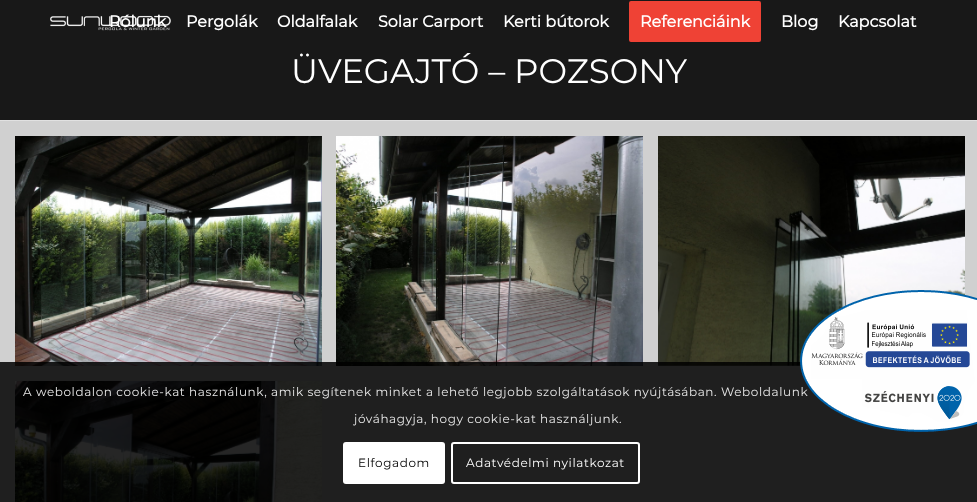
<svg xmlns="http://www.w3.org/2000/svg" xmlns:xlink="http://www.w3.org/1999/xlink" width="977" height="502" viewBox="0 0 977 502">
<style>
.cls-1{font:bold 16px Montserrat;fill:#ffffff}
.cls-2{font:100 34px Montserrat;fill:#ffffff}
.cls-3{font:100 12px Montserrat;letter-spacing:0.6px;fill:#e8e8e8}
.cls-4{font:100 12px Montserrat;letter-spacing:0.6px;fill:#000000}
.cls-5{font:100 12px Montserrat;letter-spacing:0.6px;fill:#ffffff}
</style>
<rect width="100%" height="100%" fill="#181818"/>
<image xlink:href="image0.png" x="50" y="15" width="121" height="16"/>
<rect fill="#ef4235" stroke="#ef4235" stroke-width="2" x="630" y="2" width="130" height="39" rx="1"/>
<rect fill="#e1e1e1" x="0" y="120" width="977" height="1"/>
<rect fill="#d0d0d0" x="0" y="121" width="977" height="381"/>
<image xlink:href="image1.png" x="15" y="136" width="307" height="230"/>
<image xlink:href="image2.png" x="336" y="136" width="307" height="230"/>
<image xlink:href="image3.png" x="658" y="136" width="307" height="230"/>
<image xlink:href="image4.png" x="15" y="381" width="307" height="121"/>
<rect fill="#000000" fill-opacity="0.85" x="0" y="362" width="977" height="140"/>
<rect fill="#ffffff" x="343" y="442" width="102" height="42" rx="3"/>
<rect fill="none" stroke="#ffffff" stroke-width="2" x="452" y="443" width="187" height="40" rx="2"/>
<text class="cls-1" x="109" y="27">Rólunk</text>
<text class="cls-1" x="186" y="27">Pergolák</text>
<text class="cls-1" x="277" y="27">Oldalfalak</text>
<text class="cls-1" x="378" y="27">Solar Carport</text>
<text class="cls-1" x="503" y="27">Kerti bútorok</text>
<text class="cls-1" x="640" y="27">Referenciáink</text>
<text class="cls-1" x="781" y="27">Blog</text>
<text class="cls-1" x="838" y="27">Kapcsolat</text>
<text class="cls-2" x="291" y="83">ÜVEGAJTÓ – POZSONY</text>
<text class="cls-3" x="23" y="396">A weboldalon cookie-kat használunk, amik segítenek minket a lehető legjobb szolgáltatások nyújtásában. Weboldalunk</text>
<text class="cls-3" x="354" y="423">jóváhagyja, hogy cookie-kat használjunk.</text>
<text class="cls-4" x="358" y="467">Elfogadom</text>
<text class="cls-5" x="466" y="467">Adatvédelmi nyilatkozat</text>
<image xlink:href="image5.png" x="800" y="290" width="177" height="142"/>
</svg>
